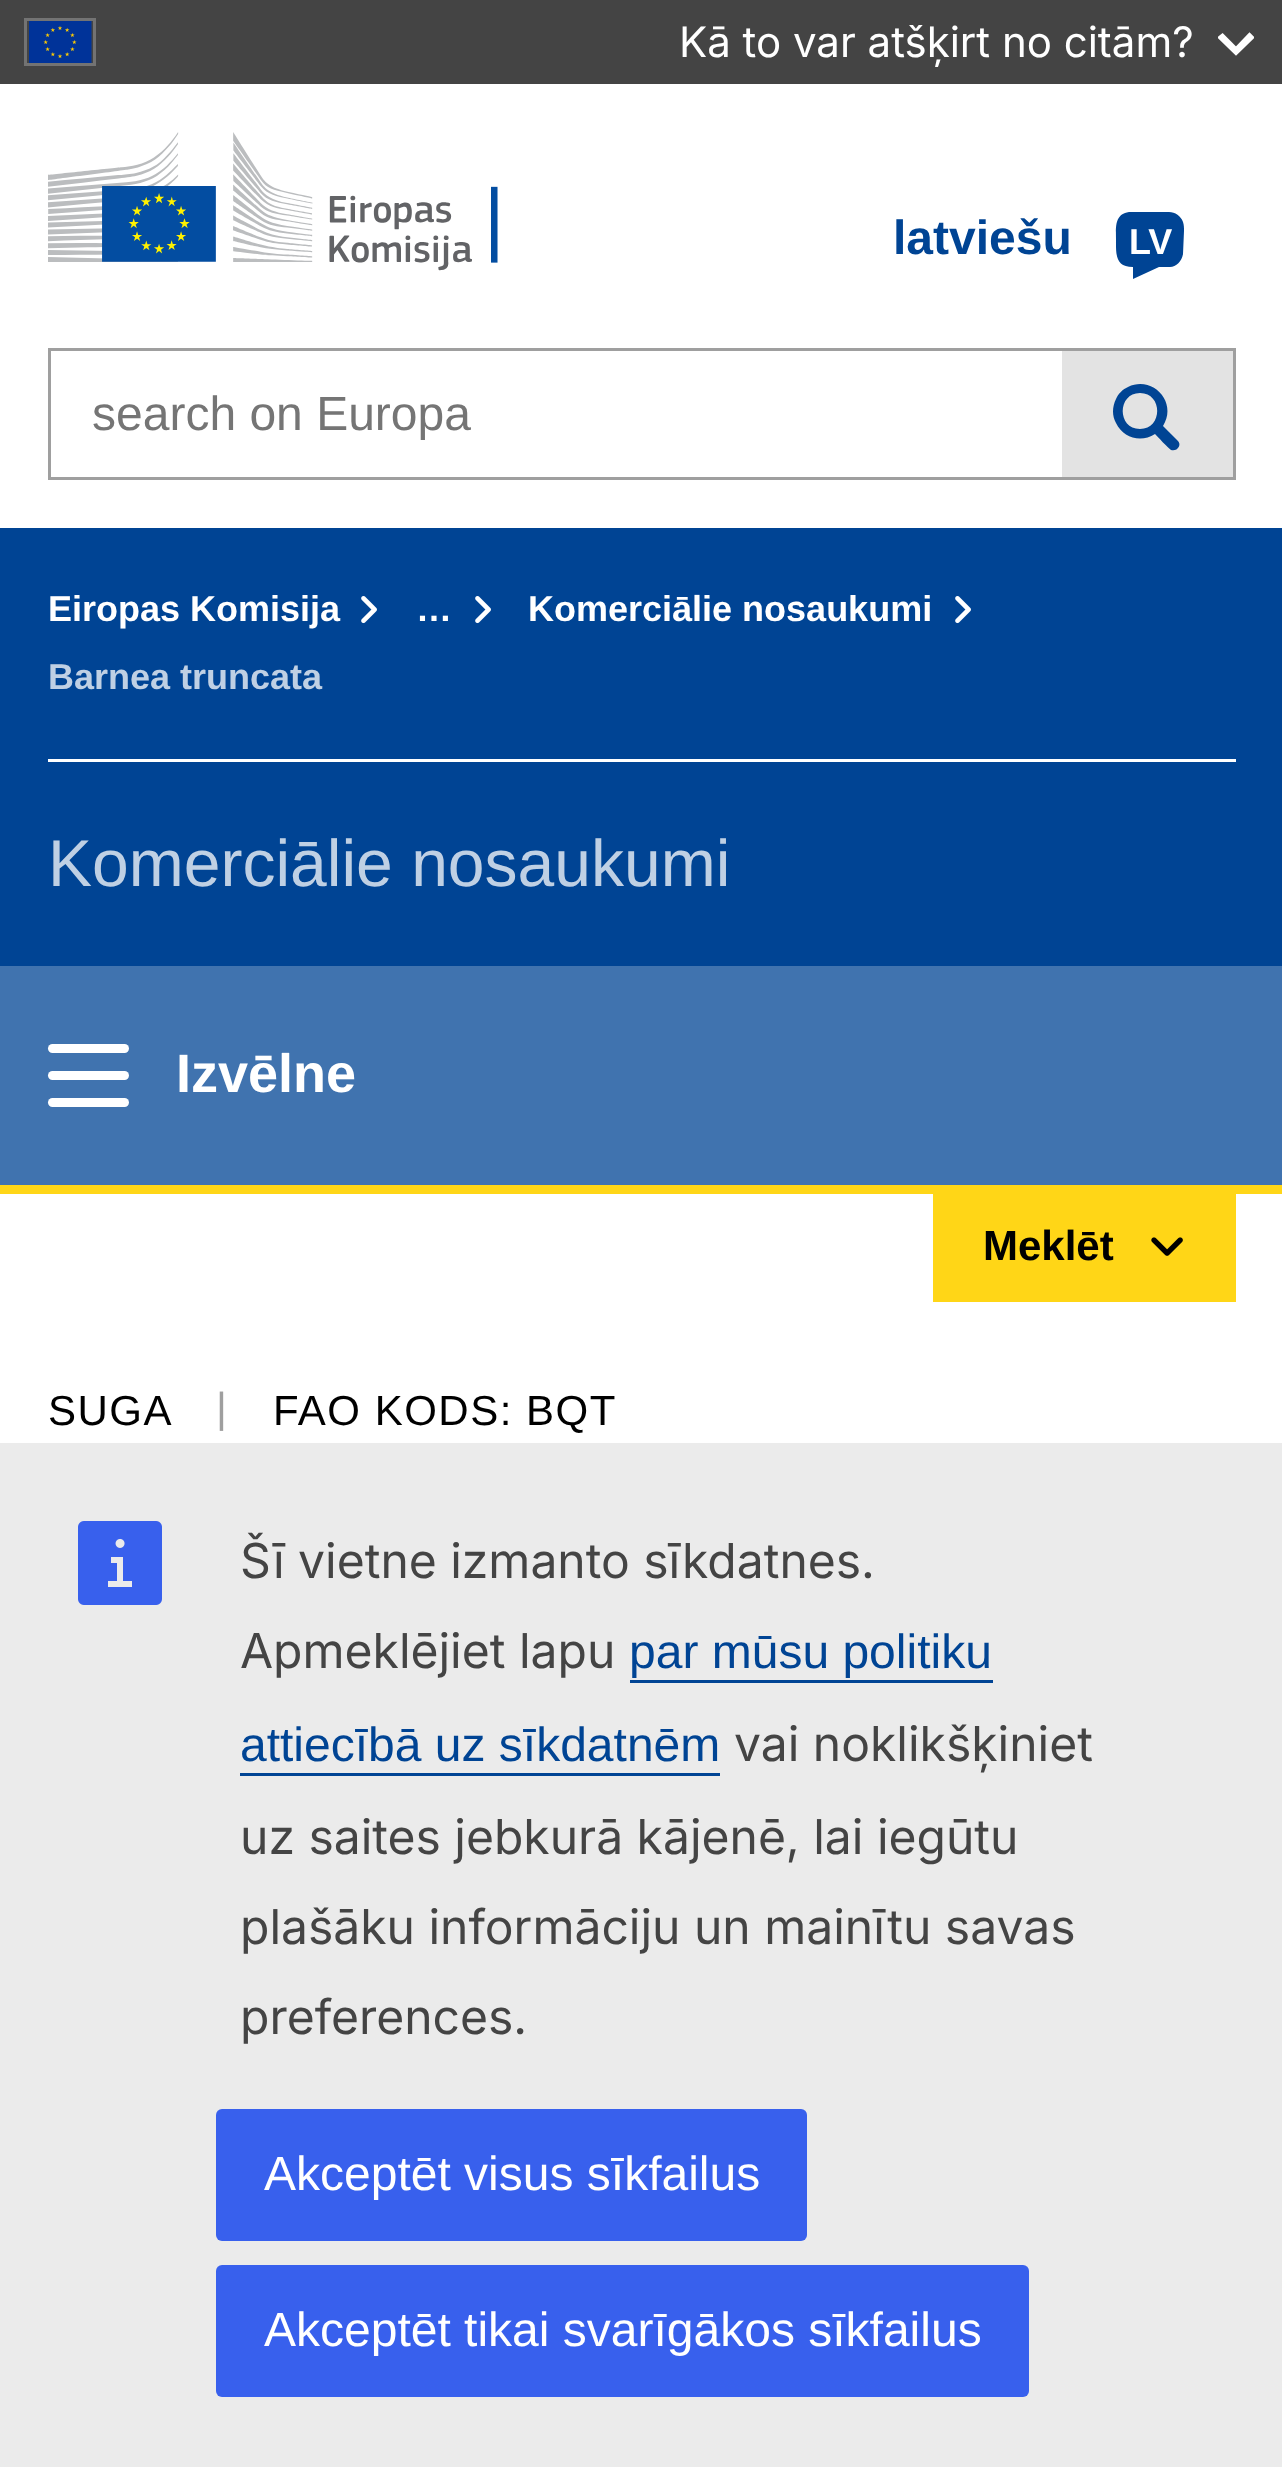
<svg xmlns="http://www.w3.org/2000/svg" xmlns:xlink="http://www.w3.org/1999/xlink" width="1282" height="2467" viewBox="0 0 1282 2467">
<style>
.cls-1{font:42px Inter;fill:#ffffff}
.cls-2{font:bold 48px Liberation Sans;fill:#004494}
.cls-3{font:bold 36px Liberation Sans;fill:#ffffff}
.cls-4{font:48px Liberation Sans;fill:#757575}
.cls-5{font:bold 36px Liberation Sans;fill:#bfd0e4}
.cls-6{font:66px Liberation Sans;fill:#bfd0e4}
.cls-7{font:bold 54px Liberation Sans;fill:#ffffff}
.cls-8{font:bold 42px Liberation Sans;fill:#000000}
.cls-9{font:42px Liberation Sans;letter-spacing:1.5px;fill:#000000}
.cls-10{font:42px Liberation Sans;letter-spacing:1.5px;fill:#9f9f9f}
.cls-11{font:48px Inter;fill:#444444}
.cls-12{font:48px Liberation Sans;fill:#004494}
.cls-13{font:48px Liberation Sans;fill:#ffffff}
</style>
<defs>
<clipPath id="clip1"><rect x="1218" y="24" width="36" height="36"/></clipPath>
</defs>
<rect width="100%" height="100%" fill="#ffffff"/>
<rect fill="#444444" x="0" y="0" width="1282" height="84"/>
<rect fill="none" stroke="#737373" stroke-width="3" x="25.5" y="19.5" width="69" height="45"/>
<image xlink:href="image0.png" x="29" y="21" width="63" height="42"/>
<g clip-path="url(#clip1)">
<path fill="none" stroke="#ffffff" stroke-width="3.8" d="M1220 37.5L1222.5 35.5L1236 49L1249.5 35L1252 37.5L1236 53Z"/>
</g>
<image xlink:href="image1.png" x="48" y="132" width="450" height="139"/>
<path fill="#004494" d="M1169 212H1129C1114 214 1116 229 1116 239C1116 254 1115 267 1133 267V279L1159 267H1170C1176 267 1182 261 1183 254L1184 231C1184 228 1184 225 1183 222C1181 216 1175 212 1169 212Z"/>
<rect fill="none" stroke="#9f9f9f" stroke-width="3" x="49.5" y="349.5" width="1185" height="129"/>
<rect fill="#e3e3e3" x="1062" y="351" width="171" height="126"/>
<path fill="#004494" d="M1178 441L1163 426C1178 403 1153 375 1128 387C1123 389 1118 394 1116 399C1112 407 1112 416 1116 423C1123 438 1141 443 1155 434C1158 437 1168 448 1171 450C1177 452 1182 445 1178 441ZM1140 429C1117 429 1117 393 1140 393C1163 393 1163 429 1140 429Z"/>
<rect fill="#004494" x="0" y="528" width="1282" height="438"/>
<rect fill="#ffffff" x="48" y="759" width="1188" height="3"/>
<image xlink:href="image2.png" x="361" y="596" width="16" height="28"/>
<image xlink:href="image2.png" x="475" y="596" width="16" height="28"/>
<image xlink:href="image2.png" x="955" y="596" width="16" height="28"/>
<rect fill="#4073af" x="0" y="966" width="1282" height="219"/>
<rect fill="#ffffff" x="48" y="1071" width="81" height="9" rx="4.5"/>
<rect fill="#ffffff" x="48" y="1044" width="81" height="9" rx="4.5"/>
<rect fill="#ffffff" x="48" y="1098" width="81" height="9" rx="4.5"/>
<rect fill="#ffd617" x="0" y="1185" width="1282" height="9"/>
<rect fill="#ffd617" x="933" y="1194" width="303" height="108"/>
<image xlink:href="image3.png" x="1151" y="1237" width="32" height="19"/>
<rect fill="#ebebeb" x="0" y="1443" width="1282" height="1024"/>
<image xlink:href="image4.png" x="78" y="1521" width="84" height="84"/>
<rect fill="#004494" x="630" y="1680" width="363" height="3"/>
<rect fill="#004494" x="240" y="1773" width="480" height="3"/>
<rect fill="#3860ed" x="216" y="2109" width="591" height="132" rx="6"/>
<rect fill="#3860ed" x="216" y="2265" width="813" height="132" rx="6"/>
<text class="cls-1" x="679" y="57">Kā to var atšķirt no citām?</text>
<text class="cls-2" x="893" y="254">latviešu</text>
<text class="cls-3" x="1129" y="254">LV</text>
<text class="cls-4" x="92" y="430">search on Europa</text>
<text class="cls-3" x="48" y="621">Eiropas Komisija</text>
<text class="cls-3" x="416" y="621">…</text>
<text class="cls-3" x="528" y="621">Komerciālie nosaukumi</text>
<text class="cls-5" x="48" y="689">Barnea truncata</text>
<text class="cls-6" x="48" y="886">Komerciālie nosaukumi</text>
<text class="cls-7" x="176" y="1092">Izvēlne</text>
<text class="cls-8" x="983" y="1260">Meklēt</text>
<text class="cls-9" x="48" y="1425">SUGA</text>
<text class="cls-10" x="216" y="1422">|</text>
<text class="cls-9" x="273" y="1425">FAO KODS: BQT</text>
<text class="cls-11"><tspan x="240" y="1578">Šī vietne izmanto sīkdatnes.</tspan><tspan x="240" y="1668">Apmeklējiet lapu</tspan></text>
<text class="cls-12" x="629" y="1668">par mūsu politiku</text>
<text class="cls-12" x="240" y="1761">attiecībā uz sīkdatnēm</text>
<text class="cls-11" x="734" y="1761">vai noklikšķiniet</text>
<text class="cls-11"><tspan x="240" y="1854">uz saites jebkurā kājenē, lai iegūtu</tspan><tspan x="240" y="1944">plašāku informāciju un mainītu savas</tspan><tspan x="240" y="2034">preferences.</tspan></text>
<text class="cls-13" x="264" y="2190">Akceptēt visus sīkfailus</text>
<text class="cls-13" x="264" y="2346">Akceptēt tikai svarīgākos sīkfailus</text>
</svg>
